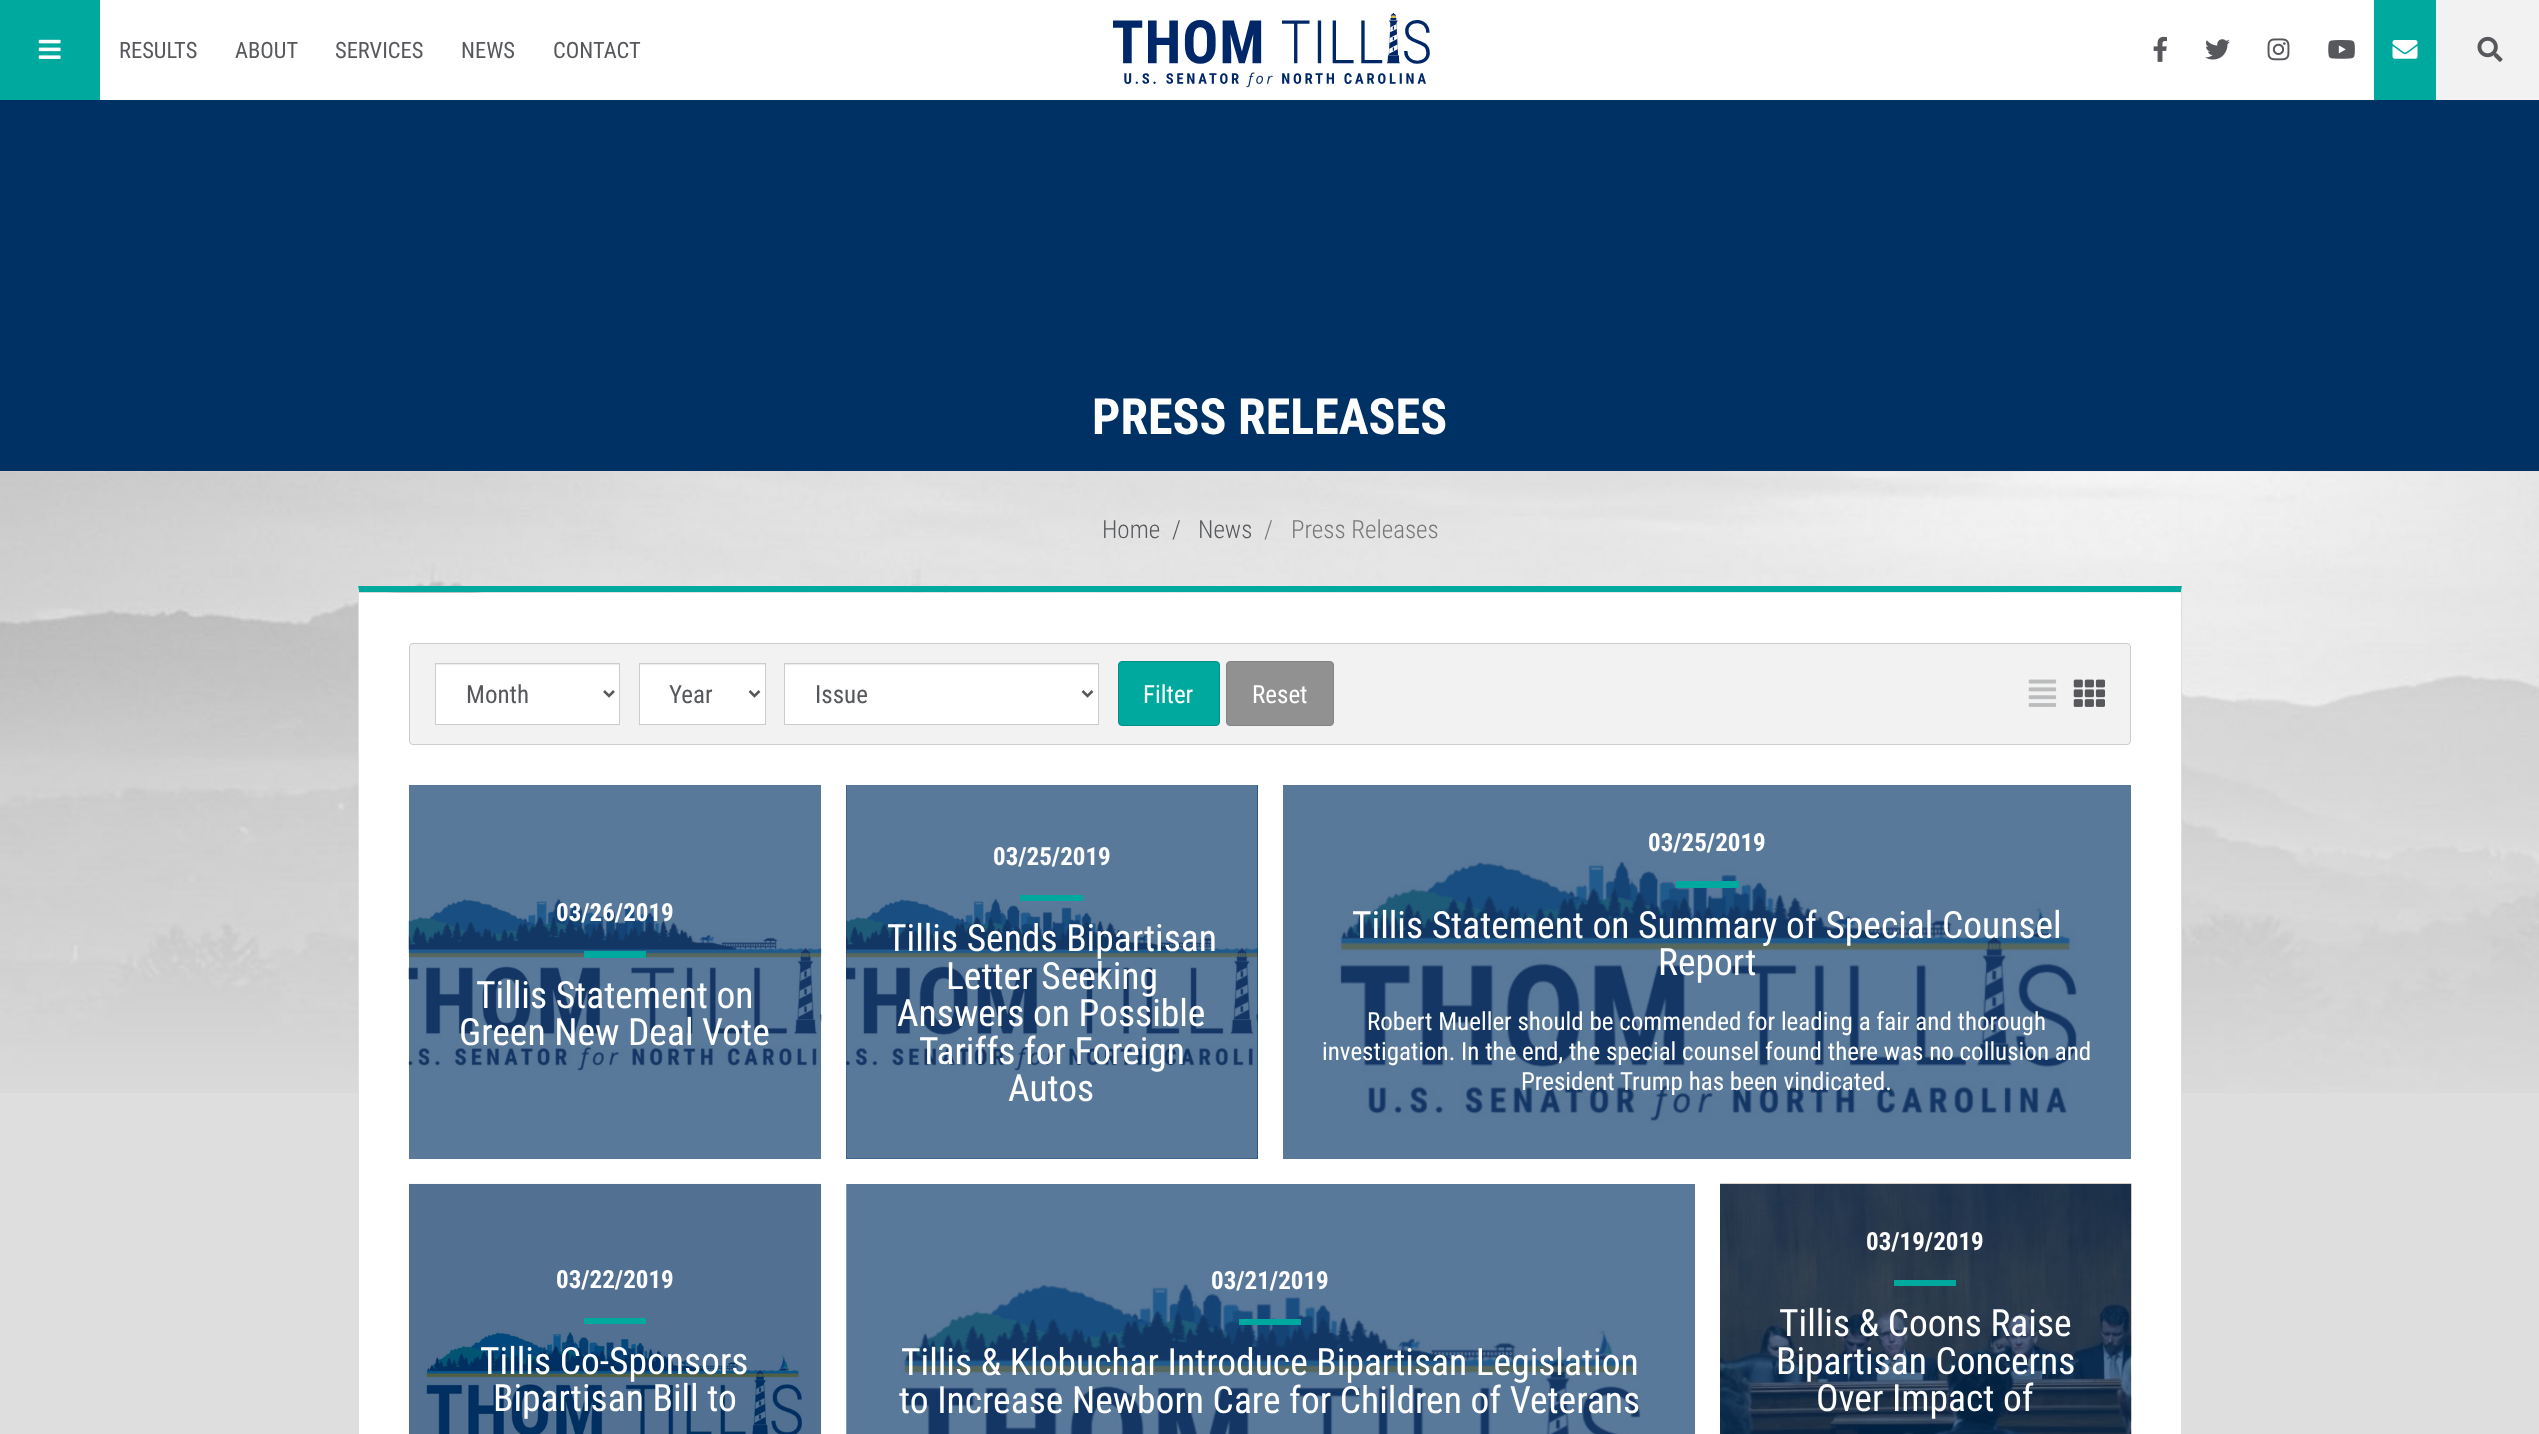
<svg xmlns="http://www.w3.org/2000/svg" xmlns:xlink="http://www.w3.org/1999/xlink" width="2539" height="1434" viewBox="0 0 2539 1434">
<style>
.cls-1{font:22.5px Roboto Condensed;fill:#56585c}
.cls-2{font:bold 50px Roboto Condensed;fill:#ffffff}
.cls-3{font:300 25px Roboto Condensed;fill:#56585c}
.cls-4{font:300 25px Roboto Condensed;fill:#777777}
.cls-5{font:25px Roboto Condensed;fill:#56585c}
.cls-6{font:25px Roboto Condensed;fill:#ffffff}
.cls-7{font:bold 25px Roboto Condensed;fill:#ffffff}
.cls-8{font:37.5px Roboto Condensed;fill:#ffffff}
</style>
<rect width="100%" height="100%" fill="#003164"/>
<rect fill="#ffffff" x="100" y="0" width="2274" height="100"/>
<rect fill="#00a99d" x="0" y="0" width="100" height="100"/>
<image xlink:href="image0.png" x="38" y="39" width="23" height="20"/>
<image xlink:href="image1.png" x="1113" y="13" width="317" height="75"/>
<image xlink:href="image2.png" x="2153" y="36" width="14" height="26"/>
<image xlink:href="image3.png" x="2205" y="39" width="25" height="21"/>
<image xlink:href="image4.png" x="2267" y="38" width="23" height="23"/>
<image xlink:href="image5.png" x="2328" y="40" width="27" height="19"/>
<rect fill="#00a99e" x="2374" y="0" width="62" height="100"/>
<rect fill="#f2f2f2" x="2436" y="0" width="103" height="100"/>
<image xlink:href="image6.png" x="2392" y="40" width="26" height="19"/>
<image xlink:href="image7.png" x="2477" y="36" width="26" height="26"/>
<rect fill="#dedede" x="0" y="471" width="2539" height="963"/>
<image xlink:href="image8.png" x="0" y="471" width="2539" height="622"/>
<rect fill="#ffffff" x="359" y="593" width="1822" height="841"/>
<path fill="#00a99d" d="M358 586H2182L2181 592H359Z"/>
<path fill="#dddddd" d="M2182 586V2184L2181 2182V592Z"/>
<path fill="#dddddd" d="M358 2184V586L359 592V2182Z"/>
<rect fill="#f2f2f2" stroke="#cccccc" x="409.5" y="643.5" width="1721" height="101" rx="3.5"/>
<rect fill="#ffffff" x="436" y="665" width="183" height="59"/>
<rect fill="#ececec" x="436" y="664" width="183" height="1"/>
<rect fill="none" stroke="#cccccc" x="435.5" y="663.5" width="184" height="61"/>
<path fill="none" stroke="#56585c" stroke-width="2.5" d="M604 691L609 696L614 691"/>
<rect fill="#ffffff" x="640" y="665" width="125" height="59"/>
<rect fill="#ececec" x="640" y="664" width="125" height="1"/>
<rect fill="none" stroke="#cccccc" x="639.5" y="663.5" width="126" height="61"/>
<path fill="none" stroke="#56585c" stroke-width="2.5" d="M749.5 691L754.5 696L759.5 691"/>
<rect fill="#ffffff" x="785" y="665" width="313" height="59"/>
<rect fill="#ececec" x="785" y="664" width="313" height="1"/>
<rect fill="none" stroke="#cccccc" x="784.5" y="663.5" width="314" height="61"/>
<path fill="none" stroke="#56585c" stroke-width="2.5" d="M1082.5 691L1087.5 696L1092.5 691"/>
<rect fill="#00a99d" stroke="#009085" x="1118.5" y="661.5" width="101" height="64" rx="3.5"/>
<rect fill="#919191" stroke="#848484" x="1226.5" y="661.5" width="107" height="64" rx="3.5"/>
<image xlink:href="image9.png" x="2028" y="679" width="29" height="28"/>
<image xlink:href="image10.png" x="2073" y="679" width="32" height="28"/>
<image xlink:href="image11.png" x="408" y="785" width="414" height="374"/>
<rect fill="#003164" fill-opacity="0.65" x="409" y="785" width="412" height="374"/>
<rect fill="#00a99d" x="584" y="951" width="62" height="7"/>
<rect fill="#003164" x="846" y="785" width="412" height="374"/>
<image xlink:href="image12.png" x="846" y="785" width="412" height="374"/>
<rect fill="#003164" fill-opacity="0.65" x="846" y="785" width="412" height="374"/>
<rect fill="#00a99d" x="1020" y="895" width="63" height="6"/>
<image xlink:href="image13.png" x="1283" y="785" width="848" height="374"/>
<rect fill="#003164" fill-opacity="0.65" x="1283" y="785" width="848" height="374"/>
<rect fill="#00a99d" x="1676" y="881" width="63" height="7"/>
<image xlink:href="image14.png" x="408" y="1183" width="414" height="251"/>
<rect fill="#00a99d" x="584" y="1318" width="62" height="6"/>
<image xlink:href="image15.png" x="846" y="1184" width="849" height="250"/>
<rect fill="#00a99d" x="1239" y="1319" width="62" height="6"/>
<image xlink:href="image16.png" x="1720" y="1183" width="412" height="251"/>
<rect fill="#00a99d" x="1894" y="1280" width="62" height="6"/>
<text class="cls-1" x="119" y="58">RESULTS</text>
<text class="cls-1" x="235" y="58">ABOUT</text>
<text class="cls-1" x="335" y="58">SERVICES</text>
<text class="cls-1" x="461" y="58">NEWS</text>
<text class="cls-1" x="553" y="58">CONTACT</text>
<text class="cls-2" x="1092" y="434">PRESS RELEASES</text>
<text class="cls-3" x="1102" y="538">Home</text>
<text class="cls-3" x="1172" y="538">/</text>
<text class="cls-3" x="1198" y="538">News</text>
<text class="cls-4" x="1264" y="538">/</text>
<text class="cls-4" x="1291" y="538">Press Releases</text>
<text class="cls-5" x="466" y="703">Month</text>
<text class="cls-5" x="669" y="703">Year</text>
<text class="cls-5" x="815" y="703">Issue</text>
<text class="cls-6" x="1143" y="703">Filter</text>
<text class="cls-6" x="1252" y="703">Reset</text>
<text class="cls-7" x="556" y="921">03/26/2019</text>
<text class="cls-8" x="476" y="1008">Tillis Statement on</text>
<text class="cls-8" x="459" y="1045">Green New Deal Vote</text>
<text class="cls-7" x="993" y="865">03/25/2019</text>
<text class="cls-8" x="887" y="951">Tillis Sends Bipartisan</text>
<text class="cls-8" x="946" y="989">Letter Seeking</text>
<text class="cls-8" x="897" y="1026">Answers on Possible</text>
<text class="cls-8" x="919" y="1064">Tariffs for Foreign</text>
<text class="cls-8" x="1008" y="1101">Autos</text>
<text class="cls-7" x="1648" y="851">03/25/2019</text>
<text class="cls-8" x="1352" y="938">Tillis Statement on Summary of Special Counsel</text>
<text class="cls-8" x="1658" y="975">Report</text>
<text class="cls-6" x="1367" y="1030">Robert Mueller should be commended for leading a fair and thorough</text>
<text class="cls-6" x="1322" y="1060">investigation. In the end, the special counsel found there was no collusion and</text>
<text class="cls-6" x="1521" y="1090">President Trump has been vindicated.</text>
<text class="cls-7" x="556" y="1288">03/22/2019</text>
<text class="cls-8" x="480" y="1374">Tillis Co-Sponsors</text>
<text class="cls-8" x="493" y="1411">Bipartisan Bill to</text>
<text class="cls-7" x="1211" y="1289">03/21/2019</text>
<text class="cls-8" x="901" y="1375">Tillis &amp; Klobuchar Introduce Bipartisan Legislation</text>
<text class="cls-8" x="899" y="1413">to Increase Newborn Care for Children of Veterans</text>
<text class="cls-7" x="1866" y="1250">03/19/2019</text>
<text class="cls-8" x="1779" y="1336">Tillis &amp; Coons Raise</text>
<text class="cls-8" x="1776" y="1374">Bipartisan Concerns</text>
<text class="cls-8" x="1816" y="1411">Over Impact of</text>
</svg>
